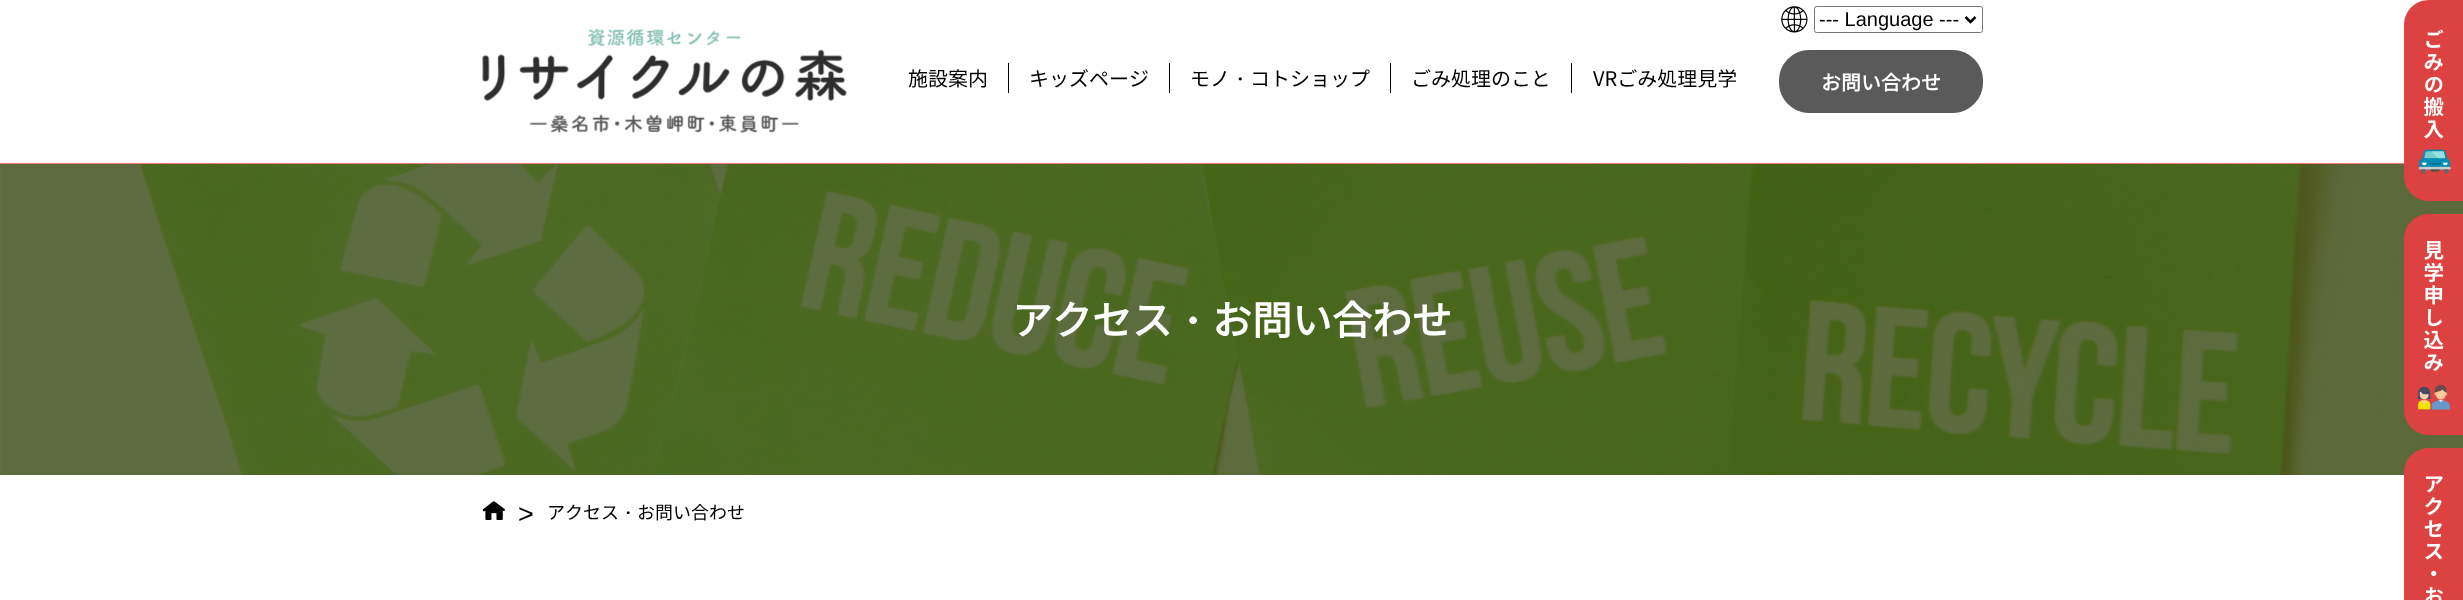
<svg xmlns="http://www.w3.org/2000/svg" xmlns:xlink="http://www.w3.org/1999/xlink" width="2463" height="600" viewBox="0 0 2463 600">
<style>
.cls-1{font:20px Liberation Sans;fill:#000000}
.cls-2{font:20px Noto Sans CJK JP;fill:#000000}
.cls-3{font:500 20px WenQuanYi Zen Hei;fill:#000000}
.cls-4{font:bold 20px Noto Sans CJK JP;fill:#ffffff}
.cls-5{font:bold 40px Noto Sans CJK JP;fill:#ffffff}
.cls-6{font:bold 40px WenQuanYi Zen Hei;fill:#ffffff}
.cls-7{font:27px Liberation Sans;fill:#000000}
.cls-8{font:18px Noto Sans CJK JP;fill:#000000}
.cls-9{font:500 18px WenQuanYi Zen Hei;fill:#000000}
</style>
<rect width="100%" height="100%" fill="#ffffff"/>
<rect fill="#f37777" x="0" y="163" width="2404" height="1"/>
<image xlink:href="image0.png" x="1781" y="6" width="27" height="27"/>
<rect fill="none" stroke="#767676" x="1814.5" y="6.5" width="168" height="26" rx="2"/>
<path fill="none" stroke="#000000" stroke-width="2.5" d="M1965.5 17L1970.5 22L1975.5 17"/>
<image xlink:href="image1.png" x="482" y="28" width="365" height="105"/>
<rect fill="#000000" x="1008" y="63" width="1" height="30"/>
<rect fill="#000000" x="1169" y="63" width="1" height="30"/>
<rect fill="#000000" x="1390" y="63" width="1" height="30"/>
<rect fill="#000000" x="1571" y="63" width="1" height="30"/>
<rect fill="#5a5a5a" stroke="#5a5a5a" x="1779.5" y="50.5" width="203" height="62" rx="29.5"/>
<image xlink:href="image5.png" x="0" y="164" width="2463" height="311"/>
<path fill="#dd4242" d="M2429 0H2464V201H2429C2415 201 2404 190 2404 176V25C2404 11 2415 0 2429 0Z"/>
<image xlink:href="image2.png" x="2418" y="29" width="33" height="145"/>
<path fill="#dd4242" d="M2429 214H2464V435H2429C2415 435 2404 424 2404 410V239C2404 225 2415 214 2429 214Z"/>
<image xlink:href="image3.png" x="2417" y="241" width="33" height="169"/>
<path fill="#dd4242" d="M2429 448H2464V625H2429C2415 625 2404 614 2404 600V473C2404 459 2415 448 2429 448Z"/>
<image xlink:href="image4.png" x="2424" y="476" width="19" height="124"/>
<image xlink:href="image6.png" x="483" y="501" width="22" height="19"/>
<text class="cls-1" x="1819" y="26">--- Language ---</text>
<text class="cls-2" x="908" y="86">施設案内</text>
<text class="cls-2" x="1029" y="86">キッズページ</text>
<text class="cls-2" x="1190" y="86">モノ</text>
<text class="cls-3" x="1230" y="86">・</text>
<text class="cls-2" x="1250" y="86">コトショップ</text>
<text class="cls-2" x="1411" y="86">ごみ処理のこと</text>
<text class="cls-2" x="1593" y="86">VRごみ処理見学</text>
<text class="cls-4" x="1821" y="90">お問い合わせ</text>
<text class="cls-5" x="1012" y="335">アクセス</text>
<text class="cls-6" x="1172" y="335">・</text>
<text class="cls-5" x="1212" y="335">お問い合わせ</text>
<text class="cls-7" x="518" y="523">&gt;</text>
<text class="cls-8" x="547" y="519">アクセス</text>
<text class="cls-9" x="619" y="519">・</text>
<text class="cls-8" x="637" y="519">お問い合わせ</text>
</svg>
